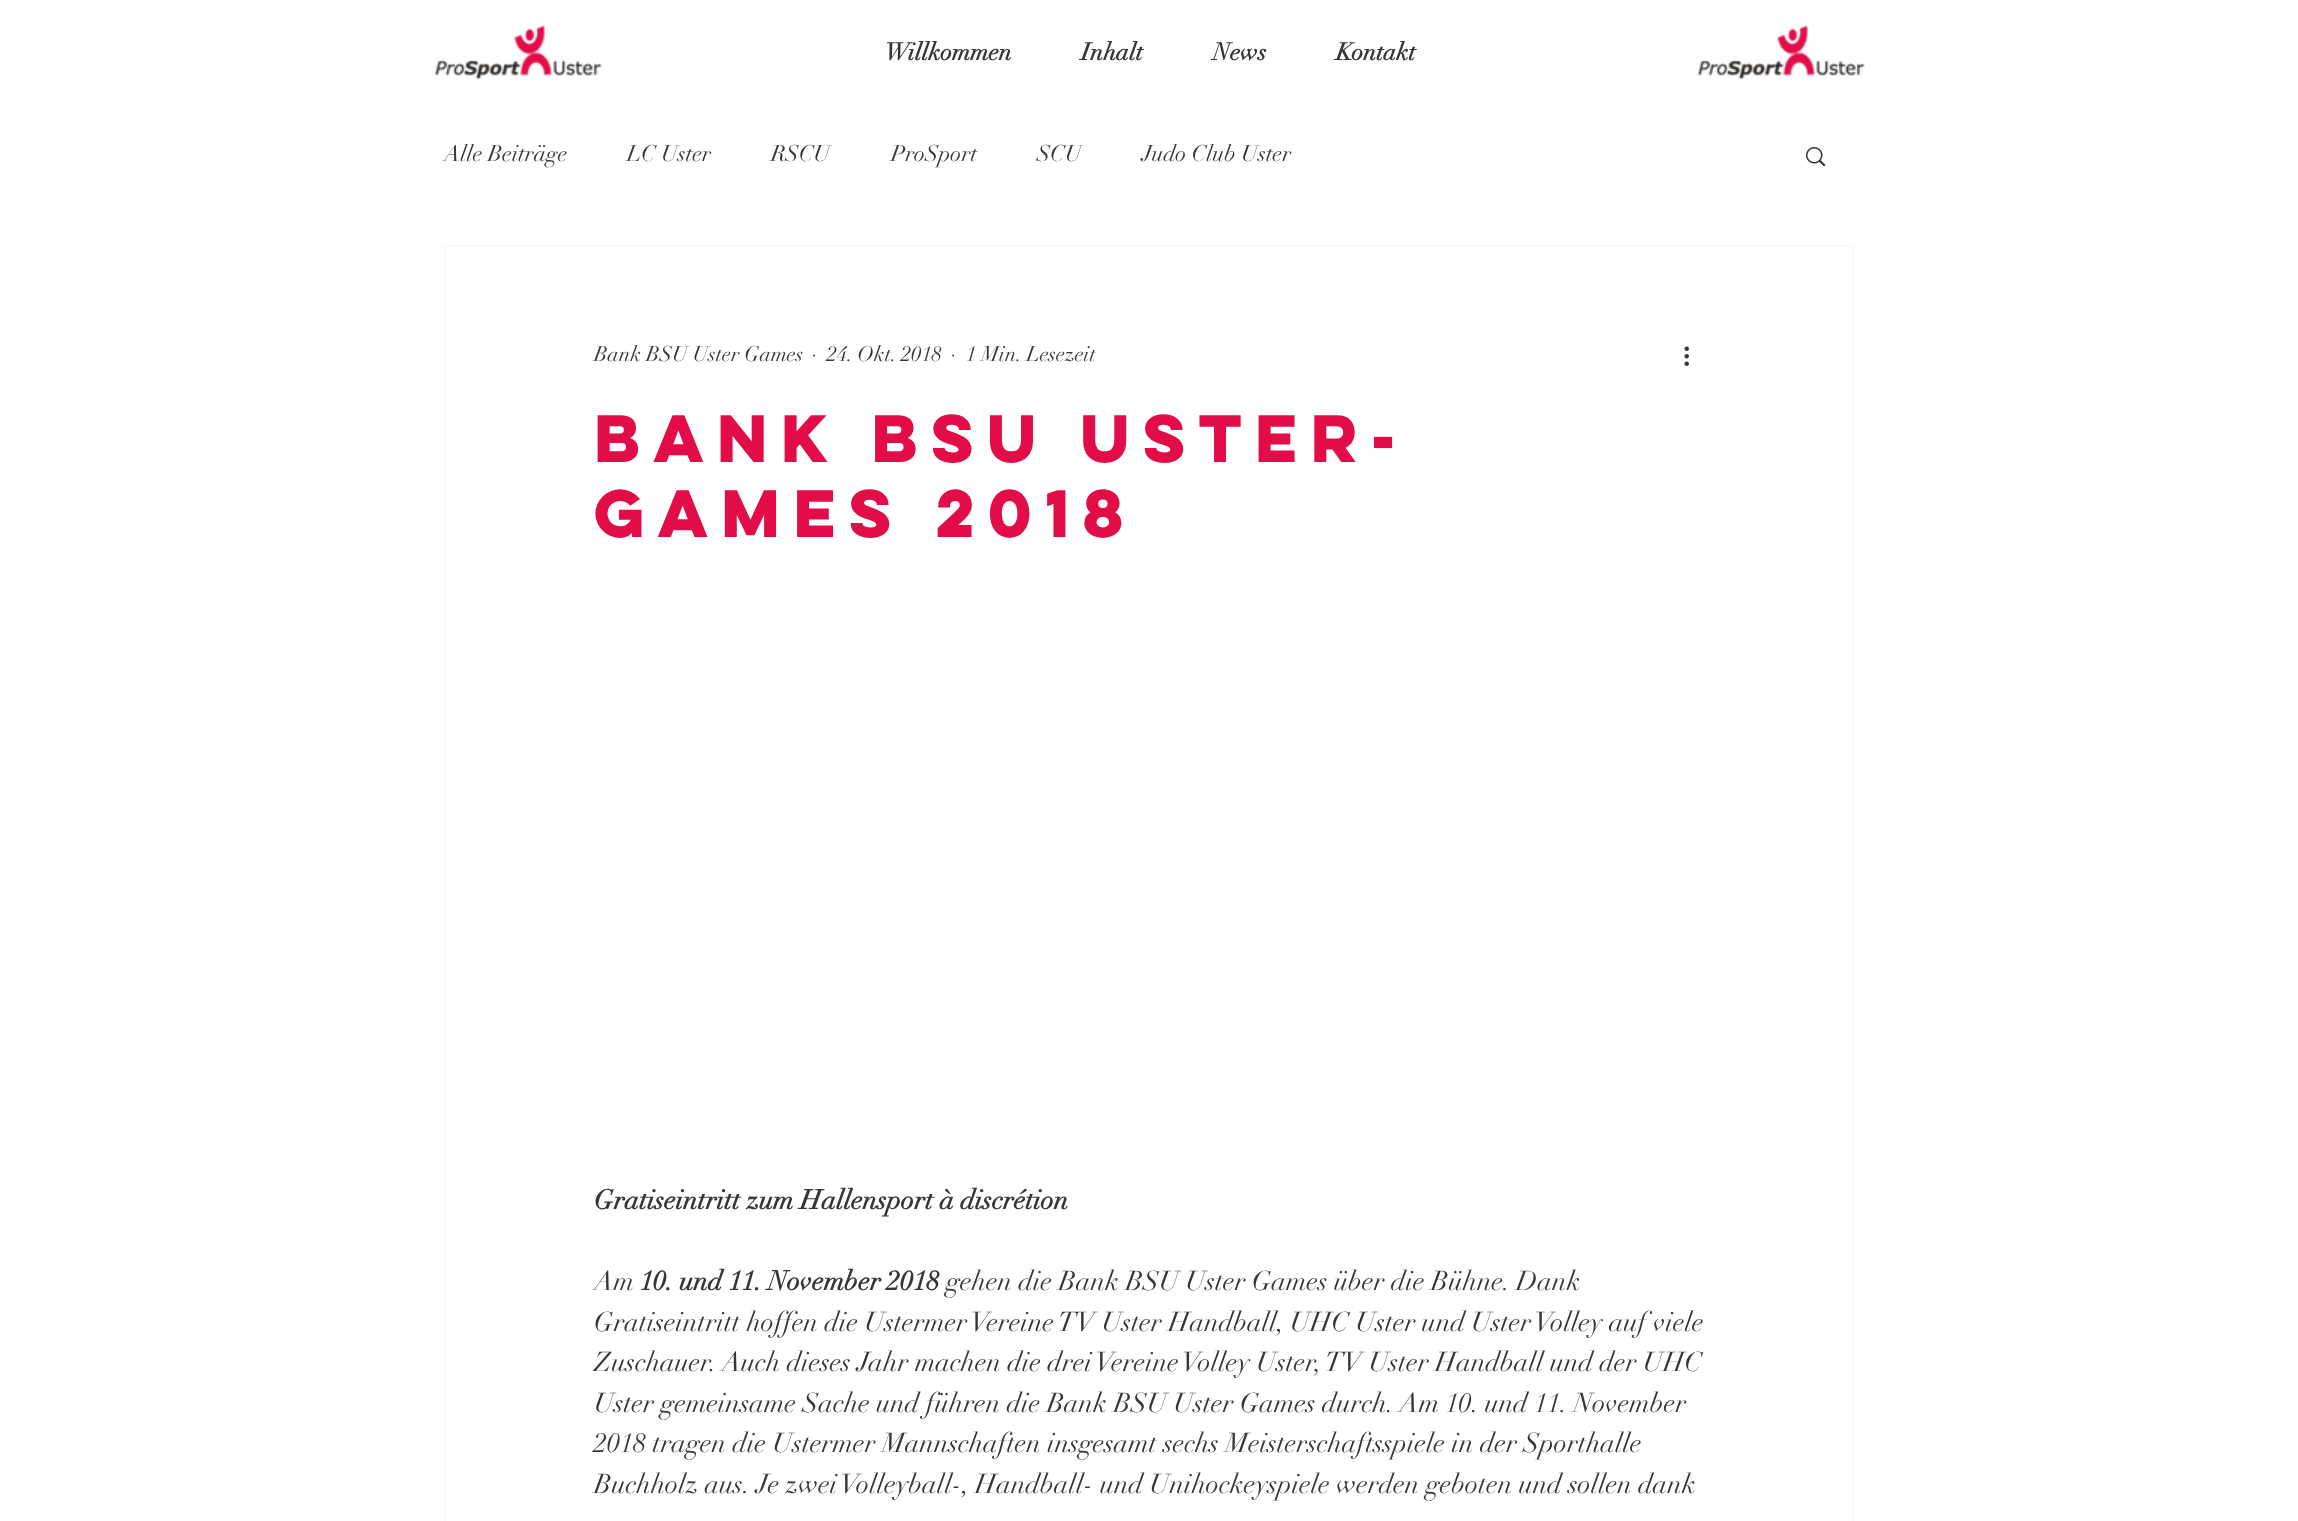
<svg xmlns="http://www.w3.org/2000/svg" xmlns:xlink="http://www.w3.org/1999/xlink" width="2298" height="1521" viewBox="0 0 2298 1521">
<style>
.cls-1{font:bold 24px didot;fill:#363636}
.cls-2{font:22.5px didot;fill:#363636}
.cls-3{font:21px didot;fill:#363636}
.cls-4{font:bold 60px 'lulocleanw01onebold';fill:#e20d47}
.cls-5{font:bold 27px didot;fill:#363636}
.cls-6{font:27px didot;fill:#363636}
</style>
<rect width="100%" height="100%" fill="#ffffff"/>
<image xlink:href="image0.png" x="434" y="25" width="168" height="55"/>
<image xlink:href="image0.png" x="1697" y="25" width="168" height="55"/>
<image xlink:href="image1.png" x="1806" y="147" width="20" height="20"/>
<rect fill="none" stroke="#fafafa" stroke-width="2" x="445" y="246" width="1408" height="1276"/>
<image xlink:href="image2.png" x="1684" y="346" width="5" height="20"/>
<text class="cls-1" x="885" y="60">Willkommen</text>
<text class="cls-1" x="1081" y="60">Inhalt</text>
<text class="cls-1" x="1213" y="60">News</text>
<text class="cls-1" x="1336" y="60">Kontakt</text>
<text class="cls-2" x="444" y="161">Alle Beiträge</text>
<text class="cls-2" x="627" y="161">LC Uster</text>
<text class="cls-2" x="771" y="161">RSCU</text>
<text class="cls-2" x="891" y="161">ProSport</text>
<text class="cls-2" x="1037" y="161">SCU</text>
<text class="cls-2" x="1142" y="161">Judo Club Uster</text>
<text class="cls-3" x="594" y="361">Bank BSU Uster Games</text>
<text class="cls-3" x="812" y="361">·</text>
<text class="cls-3" x="827" y="361">24. Okt. 2018</text>
<text class="cls-3" x="951" y="361">·</text>
<text class="cls-3" x="966" y="361">1 Min. Lesezeit</text>
<text class="cls-4"><tspan x="594" y="462">Bank BSU Uster-</tspan><tspan x="594" y="537">Games 2018</tspan></text>
<text class="cls-5" x="594" y="1209">Gratiseintritt zum Hallensport à discrétion</text>
<text class="cls-6" x="594" y="1290">Am</text>
<text class="cls-5" x="640" y="1290">10. und 11. November 2018</text>
<text class="cls-6" x="946" y="1290">gehen die Bank BSU Uster Games über die Bühne. Dank</text>
<text class="cls-6"><tspan x="594" y="1331">Gratiseintritt hoffen die Ustermer Vereine TV Uster Handball, UHC Uster und Uster Volley auf viele</tspan><tspan x="594" y="1371">Zuschauer. Auch dieses Jahr machen die drei Vereine Volley Uster, TV Uster Handball und der UHC</tspan><tspan x="594" y="1412">Uster gemeinsame Sache und führen die Bank BSU Uster Games durch. Am 10. und 11. November</tspan><tspan x="594" y="1452">2018 tragen die Ustermer Mannschaften insgesamt sechs Meisterschaftsspiele in der Sporthalle</tspan><tspan x="594" y="1493">Buchholz aus. Je zwei Volleyball-, Handball- und Unihockeyspiele werden geboten und sollen dank</tspan></text>
</svg>
